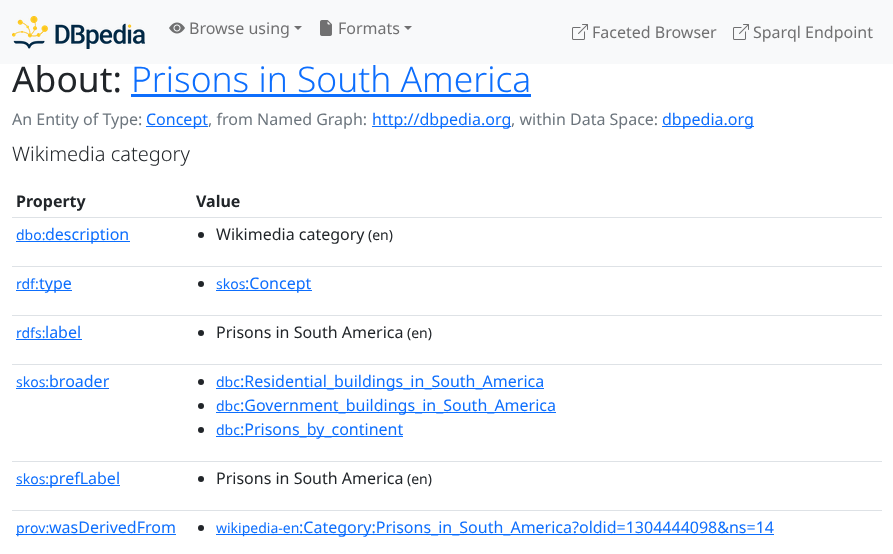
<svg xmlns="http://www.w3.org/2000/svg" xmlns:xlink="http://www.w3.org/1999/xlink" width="893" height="554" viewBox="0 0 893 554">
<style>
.cls-1{font:16px Noto Sans;fill:#707071}
.cls-2{font:35.4px Noto Sans;fill:#212529}
.cls-3{font:300 35.4px Noto Sans;fill:#0d6efd}
.cls-4{font:16px Noto Sans;fill:#6c757d}
.cls-5{font:16px Noto Sans;fill:#0d6efd}
.cls-6{font:300 20px Noto Sans;fill:#212529}
.cls-7{font:bold 16px Noto Sans;fill:#212529}
.cls-8{font:14px Noto Sans;fill:#0d6efd}
.cls-9{font:16px Noto Sans;fill:#212529}
.cls-10{font:14px Noto Sans;fill:#212529}
</style>
<rect width="100%" height="100%" fill="#ffffff"/>
<rect fill="#f8f9fa" x="0" y="0" width="893" height="64"/>
<image xlink:href="image0.png" x="12" y="16" width="133" height="33"/>
<image xlink:href="image1.png" x="169" y="22" width="16" height="12"/>
<path fill="#707071" d="M294 26H302L298 30Z"/>
<image xlink:href="image2.png" x="320" y="20" width="12" height="16"/>
<path fill="#707071" d="M404 26H412L408 30Z"/>
<image xlink:href="image3.png" x="572" y="24" width="16" height="16"/>
<image xlink:href="image3.png" x="733" y="24" width="16" height="16"/>
<rect fill="#0d6efd" x="131" y="94" width="400" height="3"/>
<rect fill="#0d6efd" x="146" y="126" width="62" height="1"/>
<rect fill="#0d6efd" x="372" y="126" width="139" height="1"/>
<rect fill="#0d6efd" x="662" y="126" width="92" height="1"/>
<rect fill="#dee2e6" x="12" y="217" width="870" height="1"/>
<rect fill="#0d6efd" x="16" y="241" width="114" height="1"/>
<rect fill="#dee2e6" x="12" y="266" width="870" height="1"/>
<circle fill="#212529" cx="201" cy="235" r="3"/>
<rect fill="#0d6efd" x="16" y="290" width="56" height="1"/>
<rect fill="#dee2e6" x="12" y="315" width="870" height="1"/>
<circle fill="#212529" cx="201" cy="284" r="3"/>
<rect fill="#0d6efd" x="216" y="290" width="96" height="1"/>
<rect fill="#0d6efd" x="16" y="339" width="66" height="1"/>
<rect fill="#dee2e6" x="12" y="364" width="870" height="1"/>
<circle fill="#212529" cx="201" cy="333" r="3"/>
<rect fill="#0d6efd" x="16" y="388" width="93" height="1"/>
<rect fill="#dee2e6" x="12" y="461" width="870" height="1"/>
<circle fill="#212529" cx="201" cy="382" r="3"/>
<rect fill="#0d6efd" x="216" y="388" width="328" height="1"/>
<circle fill="#212529" cx="201" cy="406" r="3"/>
<rect fill="#0d6efd" x="216" y="412" width="340" height="1"/>
<circle fill="#212529" cx="201" cy="430" r="3"/>
<rect fill="#0d6efd" x="216" y="436" width="187" height="1"/>
<rect fill="#0d6efd" x="16" y="485" width="104" height="1"/>
<rect fill="#dee2e6" x="12" y="510" width="870" height="1"/>
<circle fill="#212529" cx="201" cy="479" r="3"/>
<rect fill="#0d6efd" x="16" y="534" width="160" height="1"/>
<circle fill="#212529" cx="201" cy="528" r="3"/>
<rect fill="#0d6efd" x="216" y="534" width="558" height="1"/>
<text class="cls-1" x="189" y="34">Browse using</text>
<text class="cls-1" x="338" y="34">Formats</text>
<text class="cls-1" x="592" y="38">Faceted Browser</text>
<text class="cls-1" x="753" y="38">Sparql Endpoint</text>
<text class="cls-2" x="12" y="92">About:</text>
<text class="cls-3" x="131" y="92">Prisons in South America</text>
<text class="cls-4" x="12" y="125">An Entity of Type:</text>
<text class="cls-5" x="146" y="125">Concept</text>
<text class="cls-4" x="208" y="125">, from Named Graph:</text>
<text class="cls-5" x="372" y="125">http://dbpedia.org</text>
<text class="cls-4" x="511" y="125">, within Data Space:</text>
<text class="cls-5" x="662" y="125">dbpedia.org</text>
<text class="cls-6" x="12" y="161">Wikimedia category</text>
<text class="cls-7" x="16" y="207">Property</text>
<text class="cls-7" x="196" y="207">Value</text>
<text class="cls-8" x="16" y="240">dbo:</text>
<text class="cls-5" x="45" y="240">description</text>
<text class="cls-9" x="216" y="240">Wikimedia category</text>
<text class="cls-10" x="368" y="240">(en)</text>
<text class="cls-8" x="16" y="289">rdf:</text>
<text class="cls-5" x="39" y="289">type</text>
<text class="cls-8" x="216" y="289">skos</text>
<text class="cls-5" x="245" y="289">:Concept</text>
<text class="cls-8" x="16" y="338">rdfs:</text>
<text class="cls-5" x="45" y="338">label</text>
<text class="cls-9" x="216" y="338">Prisons in South America</text>
<text class="cls-10" x="407" y="338">(en)</text>
<text class="cls-8" x="16" y="387">skos:</text>
<text class="cls-5" x="49" y="387">broader</text>
<text class="cls-8" x="216" y="387">dbc</text>
<text class="cls-5" x="240" y="387">:Residential_buildings_in_South_America</text>
<text class="cls-8" x="216" y="411">dbc</text>
<text class="cls-5" x="240" y="411">:Government_buildings_in_South_America</text>
<text class="cls-8" x="216" y="435">dbc</text>
<text class="cls-5" x="240" y="435">:Prisons_by_continent</text>
<text class="cls-8" x="16" y="484">skos:</text>
<text class="cls-5" x="49" y="484">prefLabel</text>
<text class="cls-9" x="216" y="484">Prisons in South America</text>
<text class="cls-10" x="407" y="484">(en)</text>
<text class="cls-8" x="16" y="533">prov:</text>
<text class="cls-5" x="49" y="533">wasDerivedFrom</text>
<text class="cls-8" x="216" y="533">wikipedia-en</text>
<text class="cls-5" x="299" y="533">:Category:Prisons_in_South_America?oldid=1304444098&amp;ns=14</text>
</svg>
